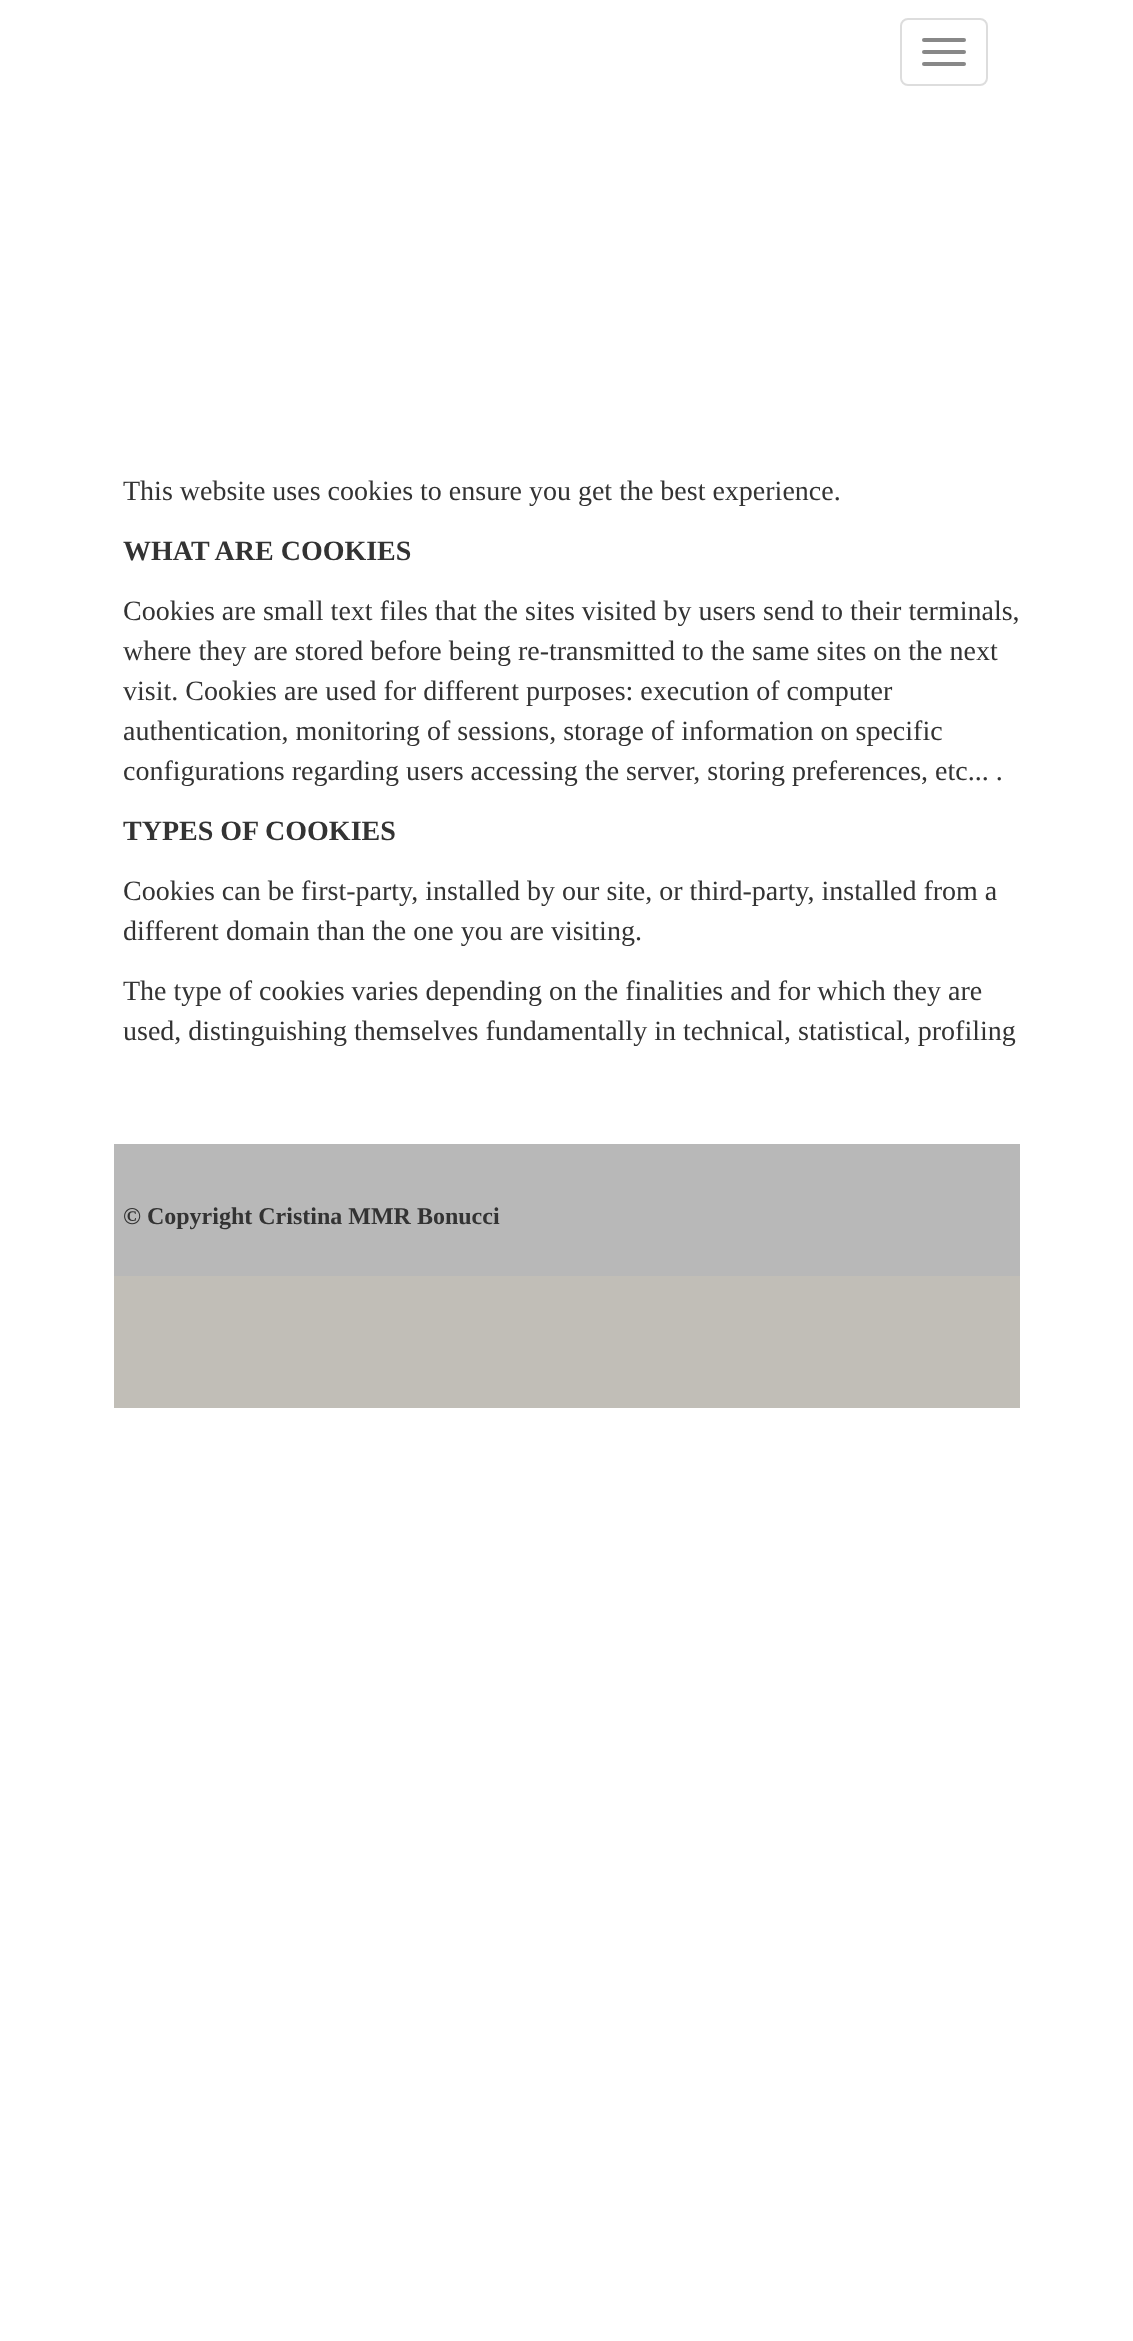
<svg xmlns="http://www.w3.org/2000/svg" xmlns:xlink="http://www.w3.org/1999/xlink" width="1133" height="2341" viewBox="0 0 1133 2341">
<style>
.cls-1{font:28px Liberation Serif;fill:#333333}
.cls-2{font:bold 28px Liberation Serif;fill:#333333}
.cls-3{font:bold 24px Liberation Serif;fill:#333333}
</style>
<rect width="100%" height="100%" fill="#ffffff"/>
<rect fill="none" stroke="#dddddd" stroke-width="2" x="901" y="19" width="86" height="66" rx="7"/>
<rect fill="#888888" x="922" y="38" width="44" height="4" rx="2"/>
<rect fill="#888888" x="922" y="50" width="44" height="4" rx="2"/>
<rect fill="#888888" x="922" y="62" width="44" height="4" rx="2"/>
<rect fill="#b8b8b8" x="114" y="1144" width="906" height="132"/>
<rect fill="#c1beb7" x="114" y="1276" width="906" height="132"/>
<text class="cls-1" x="123" y="500">This website uses cookies to ensure you get the best experience.</text>
<text class="cls-2" x="123" y="560">WHAT ARE COOKIES</text>
<text class="cls-1"><tspan x="123" y="620">Cookies are small text files that the sites visited by users send to their terminals,</tspan><tspan x="123" y="660">where they are stored before being re-transmitted to the same sites on the next</tspan><tspan x="123" y="700">visit. Cookies are used for different purposes: execution of computer</tspan><tspan x="123" y="740">authentication, monitoring of sessions, storage of information on specific</tspan><tspan x="123" y="780">configurations regarding users accessing the server, storing preferences, etc... .</tspan></text>
<text class="cls-2" x="123" y="840">TYPES OF COOKIES</text>
<text class="cls-1"><tspan x="123" y="900">Cookies can be first-party, installed by our site, or third-party, installed from a</tspan><tspan x="123" y="940">different domain than the one you are visiting.</tspan></text>
<text class="cls-1"><tspan x="123" y="1000">The type of cookies varies depending on the finalities and for which they are</tspan><tspan x="123" y="1040">used, distinguishing themselves fundamentally in technical, statistical, profiling</tspan></text>
<text class="cls-3" x="123" y="1224">© Copyright Cristina MMR Bonucci</text>
</svg>
